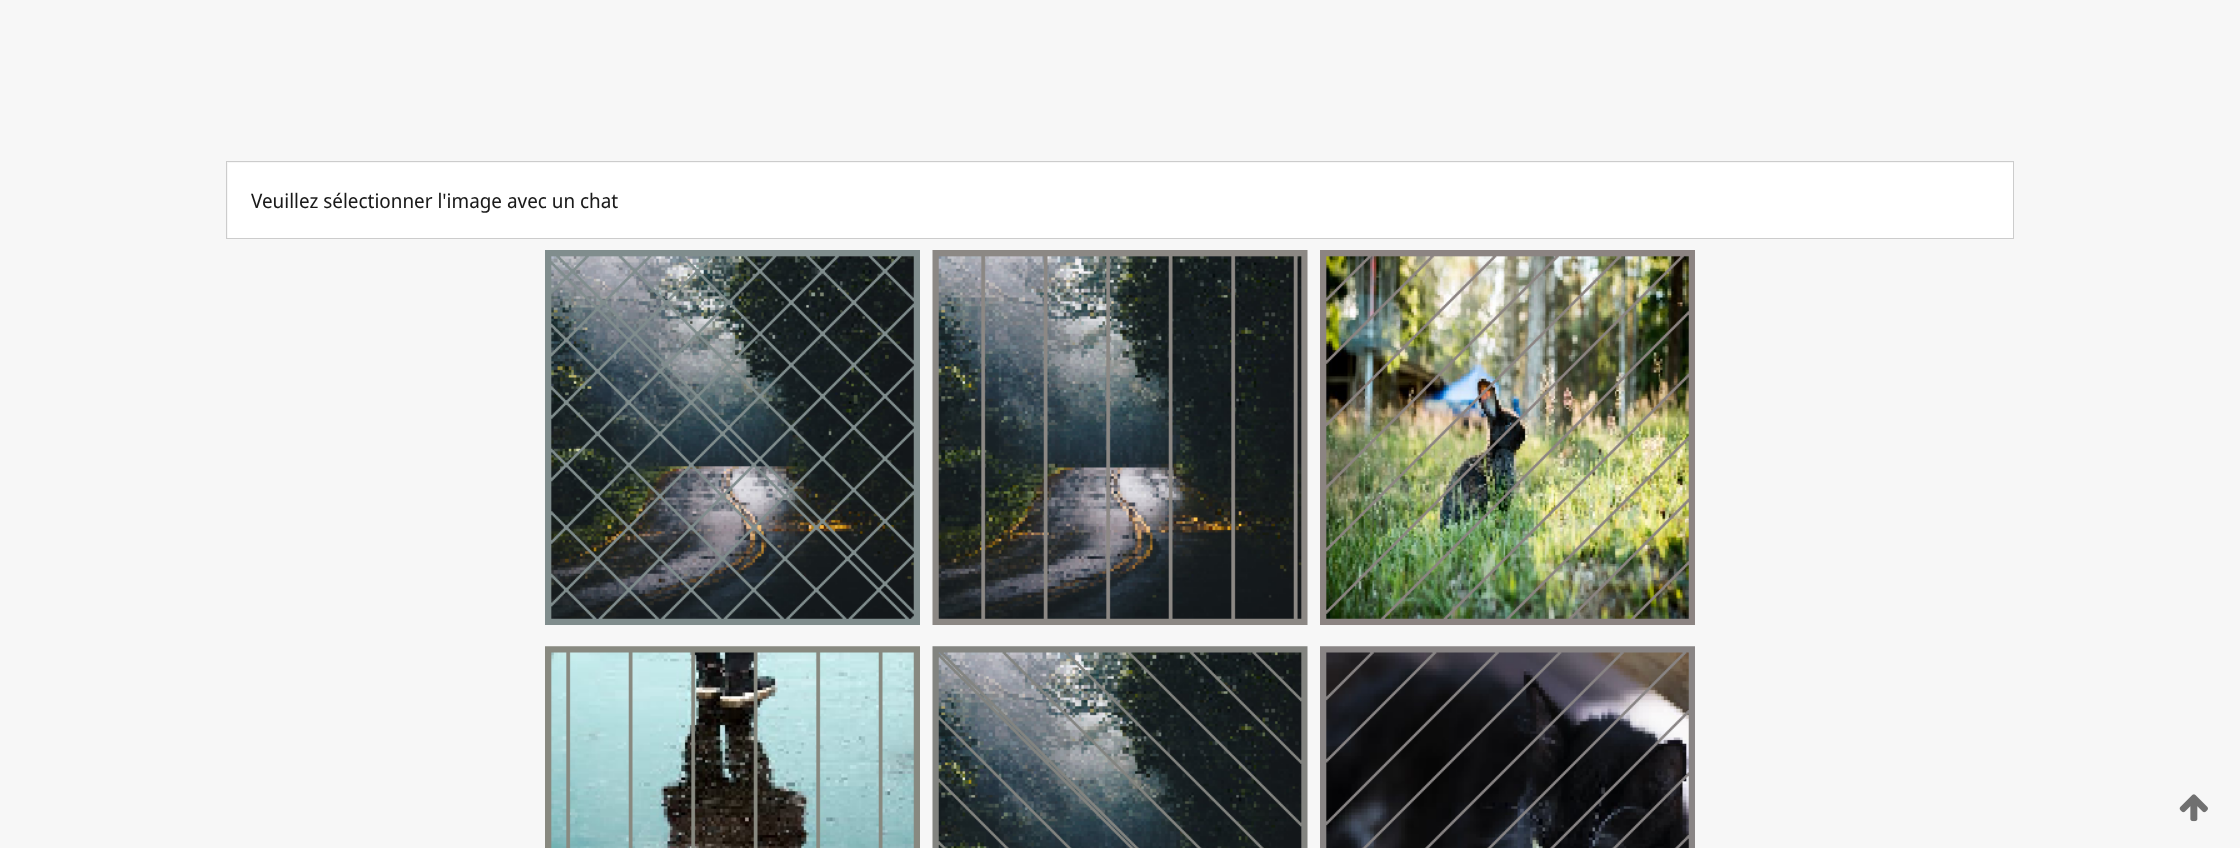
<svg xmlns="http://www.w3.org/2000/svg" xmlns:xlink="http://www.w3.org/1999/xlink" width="2240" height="848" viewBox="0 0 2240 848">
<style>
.cls-1{font:20px Noto Sans Display;fill:#1a1a1a}
</style>
<rect width="100%" height="100%" fill="#f7f7f7"/>
<rect fill="#ffffff" x="228" y="163" width="1785" height="75"/>
<rect fill="none" stroke="#cccccc" x="226.5" y="161.5" width="1787" height="77"/>
<image xlink:href="image0.png" x="545" y="250" width="375" height="375"/>
<image xlink:href="image1.png" x="932" y="250" width="376" height="375"/>
<image xlink:href="image2.png" x="1320" y="250" width="375" height="375"/>
<image xlink:href="image3.png" x="545" y="646" width="375" height="202"/>
<image xlink:href="image4.png" x="932" y="646" width="376" height="202"/>
<image xlink:href="image5.png" x="1320" y="646" width="375" height="202"/>
<image xlink:href="image6.png" x="2179" y="794" width="29" height="28"/>
<text class="cls-1" x="251" y="208">Veuillez sélectionner l'image avec un chat</text>
</svg>
